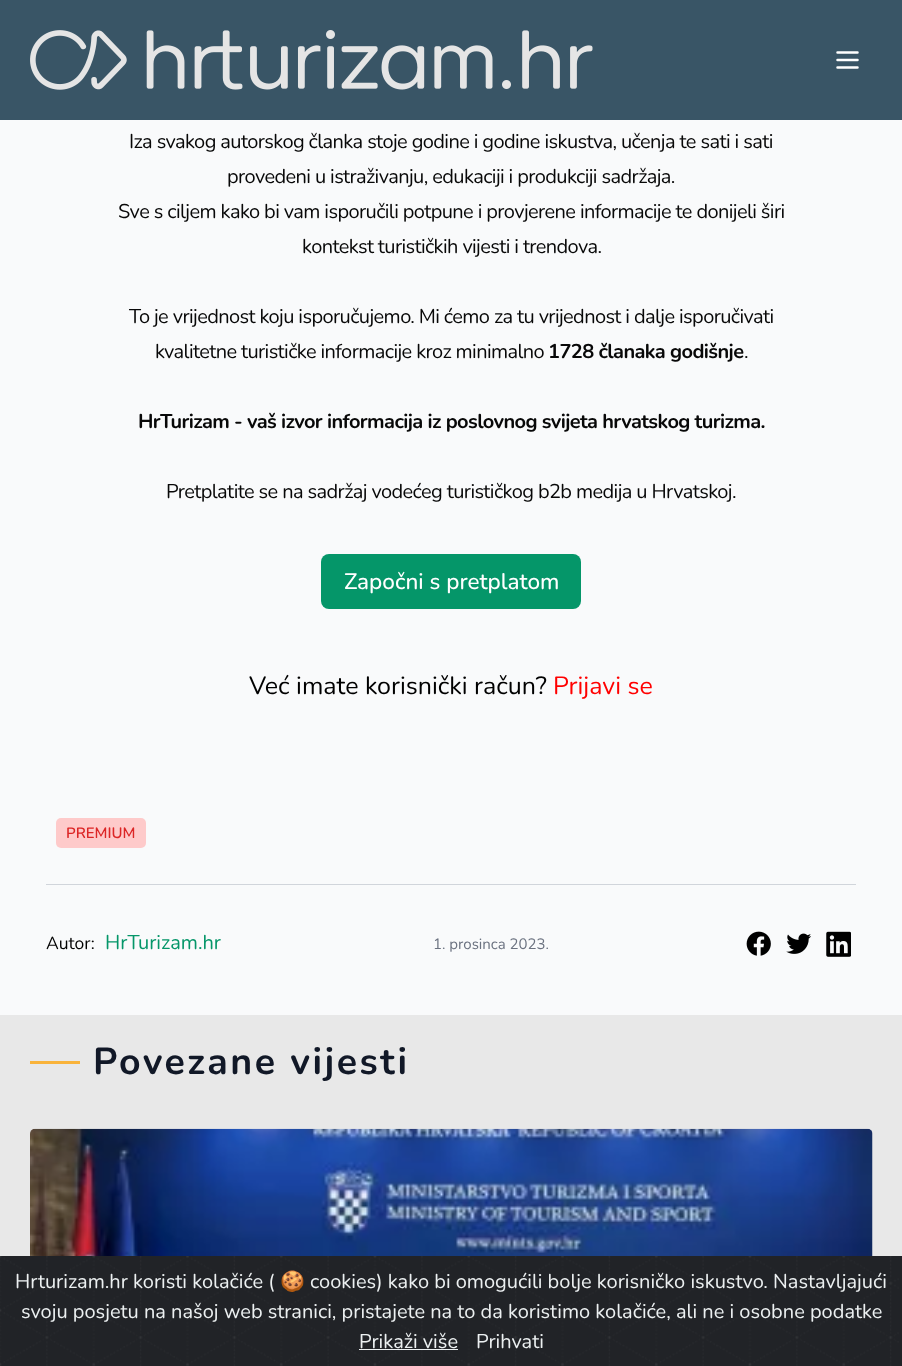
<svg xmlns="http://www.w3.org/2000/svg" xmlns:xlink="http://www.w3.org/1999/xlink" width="902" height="1366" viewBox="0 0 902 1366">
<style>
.cls-1{font:20px Nunito;letter-spacing:-0.6px;fill:#080808}
.cls-2{font:bold 20px Nunito;letter-spacing:-0.6px;fill:#080808}
.cls-3{font:500 22.5px Nunito;fill:#ffffff}
.cls-4{font:25px Nunito;fill:#000000}
.cls-5{font:25px Nunito;fill:#ff0000}
.cls-6{font:600 15px Nunito;fill:#dc2626}
.cls-7{font:17.5px Nunito;fill:#000000}
.cls-8{font:20px Nunito;fill:#059669}
.cls-9{font:15px Nunito;fill:#6b7280}
.cls-10{font:bold 37.5px Nunito;letter-spacing:2.5px;fill:#111827}
.cls-11{font:20px Nunito;fill:#ecf0f1}
.cls-12{font:20px Noto Color Emoji;fill:#ecf0f1}
</style>
<rect width="100%" height="100%" fill="#f9fafb"/>
<rect fill="#395566" x="0" y="0" width="902" height="120"/>
<image xlink:href="image0.png" x="30" y="30" width="563" height="60"/>
<path fill="none" stroke="#ffffff" stroke-width="2.5" stroke-linecap="round" stroke-linejoin="round" d="M837.5 52.5H857.5M837.5 60H857.5M837.5 67.5H857.5"/>
<rect fill="#059669" x="321" y="554" width="260" height="55" rx="8"/>
<rect fill="#fecaca" x="56" y="818" width="90" height="30" rx="5"/>
<rect fill="#d1d5db" x="46" y="884" width="810" height="1"/>
<image xlink:href="image1.png" x="746" y="931" width="25" height="25"/>
<image xlink:href="image2.png" x="786" y="933" width="25" height="21"/>
<image xlink:href="image3.png" x="826" y="931" width="25" height="26"/>
<rect fill="#e8e8e8" x="0" y="1015" width="902" height="241"/>
<rect fill="#f9b33b" x="30" y="1061" width="50" height="3"/>
<image xlink:href="image4.png" x="30" y="1128" width="843" height="128"/>
<rect fill="#212327" x="899" y="1256" width="3" height="110"/>
<image xlink:href="image5.png" x="0" y="1256" width="899" height="110"/>
<rect fill="#ecf0f1" x="359" y="1349" width="99" height="1"/>
<text class="cls-1" x="129" y="148">Iza svakog autorskog članka stoje godine i godine iskustva, učenja te sati i sati</text>
<text class="cls-1" x="227" y="183">provedeni u istraživanju, edukaciji i produkciji sadržaja.</text>
<text class="cls-1" x="118" y="218">Sve s ciljem kako bi vam isporučili potpune i provjerene informacije te donijeli širi</text>
<text class="cls-1" x="302" y="253">kontekst turističkih vijesti i trendova.</text>
<text class="cls-1" x="129" y="323">To je vrijednost koju isporučujemo. Mi ćemo za tu vrijednost i dalje isporučivati</text>
<text class="cls-1" x="155" y="358">kvalitetne turističke informacije kroz minimalno</text>
<text class="cls-2" x="548" y="358">1728 članaka godišnje</text>
<text class="cls-1" x="744" y="358">.</text>
<text class="cls-2" x="138" y="428">HrTurizam - vaš izvor informacija iz poslovnog svijeta hrvatskog turizma.</text>
<text class="cls-1" x="166" y="498">Pretplatite se na sadržaj vodećeg turističkog b2b medija u Hrvatskoj.</text>
<text class="cls-3" x="344" y="589">Započni s pretplatom</text>
<text class="cls-4" x="249" y="694">Već imate korisnički račun?</text>
<text class="cls-5" x="553" y="694">Prijavi se</text>
<text class="cls-6" x="66" y="838">PREMIUM</text>
<text class="cls-7" x="46" y="949">Autor:</text>
<text class="cls-8" x="105" y="949">HrTurizam.hr</text>
<text class="cls-9" x="433" y="949">1. prosinca 2023.</text>
<text class="cls-10" x="93" y="1074">Povezane vijesti</text>
<text class="cls-11" x="15" y="1288">Hrturizam.hr koristi kolačiće (</text>
<text class="cls-12" x="280" y="1288">🍪</text>
<text class="cls-11" x="310" y="1288">cookies) kako bi omogućili bolje korisničko iskustvo. Nastavljajući</text>
<text class="cls-11" x="21" y="1318">svoju posjetu na našoj web stranici, pristajete na to da koristimo kolačiće, ali ne i osobne podatke</text>
<text class="cls-11" x="359" y="1348">Prikaži više</text>
<text class="cls-11" x="476" y="1348">Prihvati</text>
</svg>
